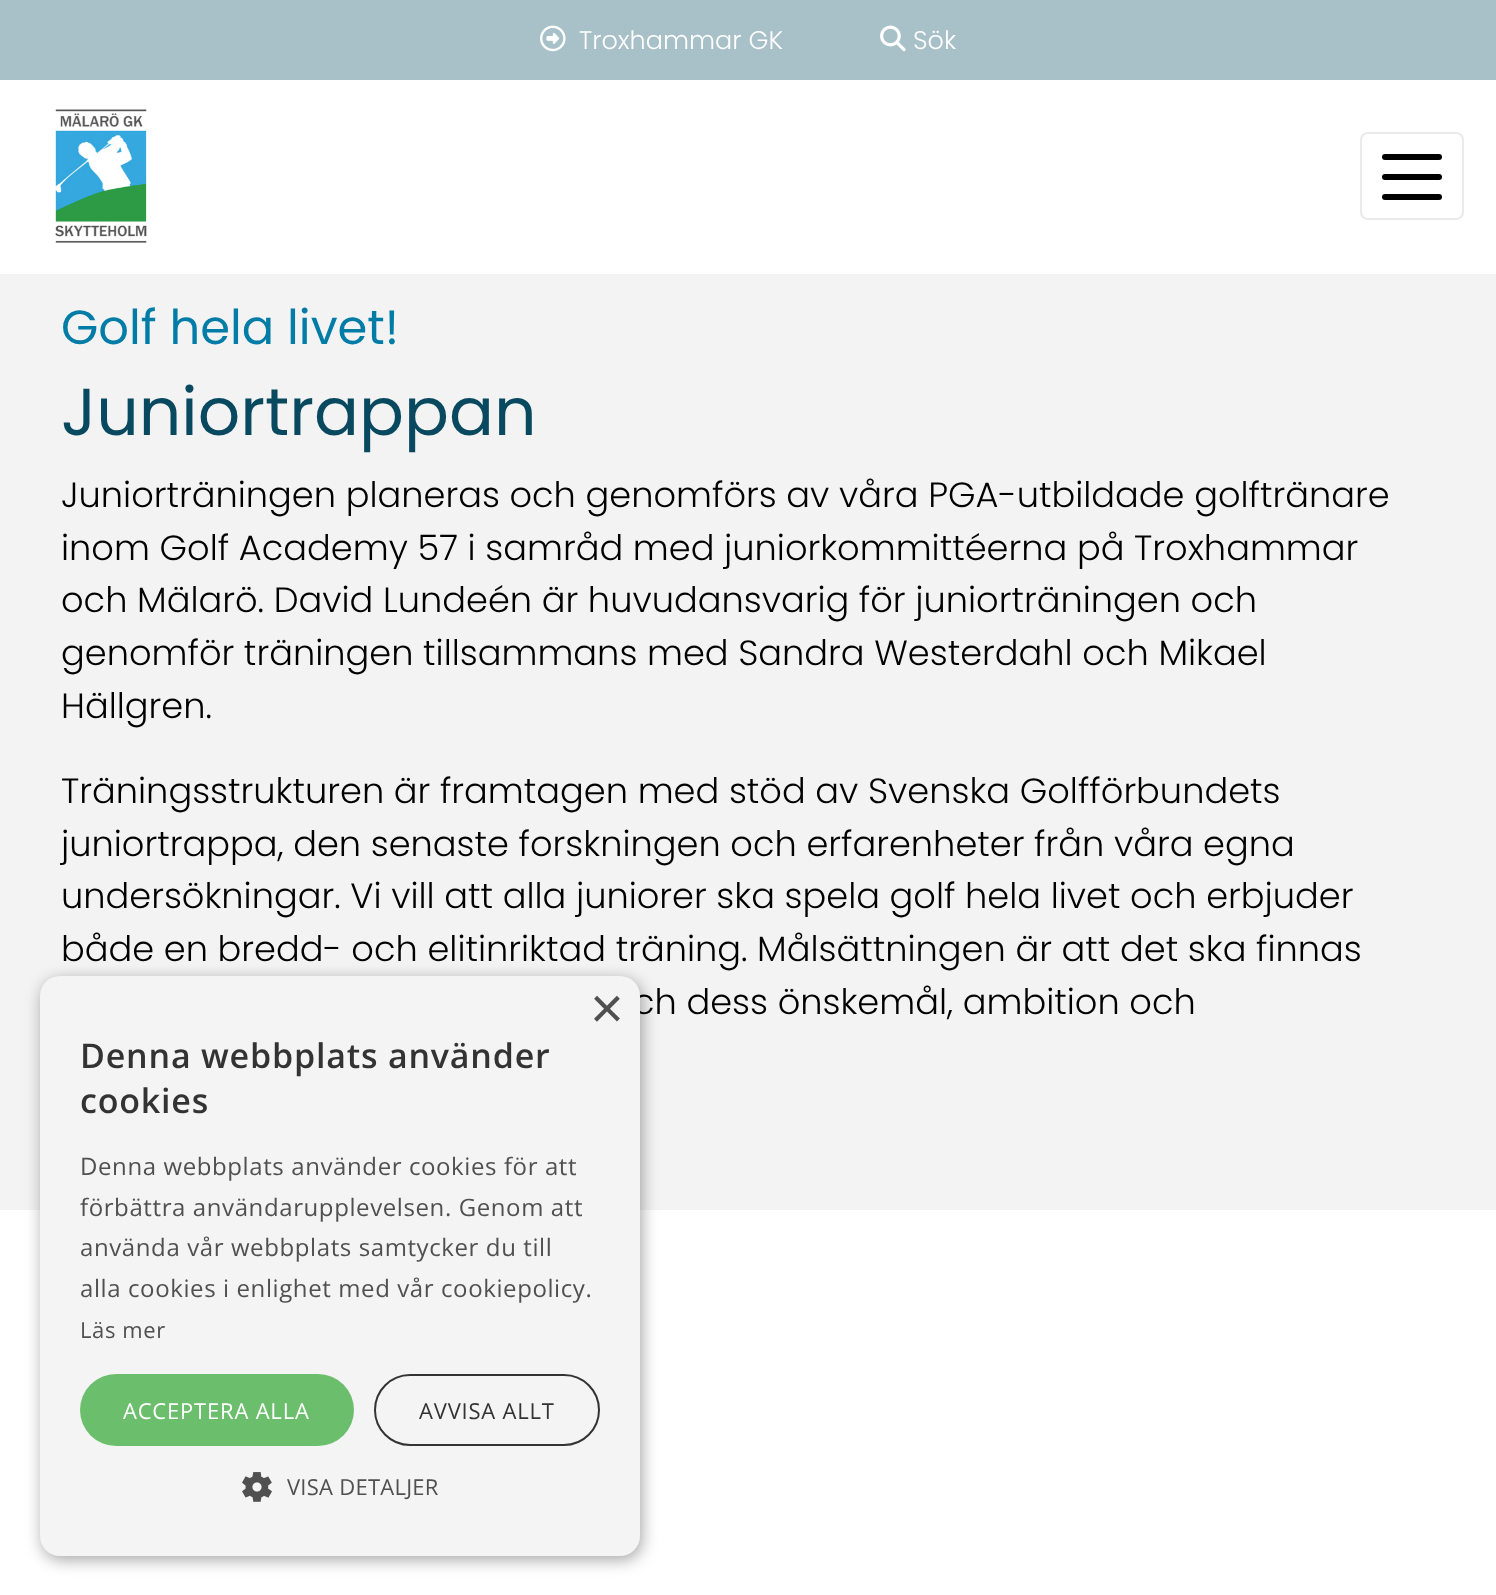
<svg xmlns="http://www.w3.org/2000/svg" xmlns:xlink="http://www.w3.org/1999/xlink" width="1496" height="1595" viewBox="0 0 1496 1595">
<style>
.cls-1{font:300 25.5px Poppins;fill:#ffffff}
.cls-2{font:48px Poppins;fill:#007ca6}
.cls-3{font:66.5px Poppins;fill:#084960}
.cls-4{font:300 35.2px Poppins;fill:#000000}
.cls-5{font:58px Liberation Sans;fill:#505050}
.cls-6{font:600 34px Open Sans;letter-spacing:0.8px;fill:#333333}
.cls-7{font:24px Open Sans;letter-spacing:0.6px;fill:#505050}
.cls-8{font:22px Open Sans;letter-spacing:0.6px;fill:#505050}
.cls-9{font:22px Open Sans;letter-spacing:0.8px;fill:#ffffff}
.cls-10{font:22px Open Sans;letter-spacing:0.8px;fill:#333333}
.cls-11{font:22px Open Sans;letter-spacing:0.25px;fill:#505050}
</style>
<rect width="100%" height="100%" fill="#f3f3f3"/>
<rect fill="#a8c0c8" x="0" y="0" width="1496" height="80"/>
<image xlink:href="image0.png" x="540" y="25" width="26" height="27"/>
<image xlink:href="image1.png" x="880" y="25" width="26" height="27"/>
<rect fill="#ffffff" x="0" y="80" width="1496" height="194"/>
<image xlink:href="image2.png" x="55" y="109" width="92" height="134"/>
<rect fill="none" stroke="#eaeaea" stroke-width="2" x="1361" y="133" width="102" height="86" rx="7"/>
<rect fill="#000000" x="1382" y="154" width="60" height="6" rx="3"/>
<rect fill="#000000" x="1382" y="174" width="60" height="6" rx="3"/>
<rect fill="#000000" x="1382" y="194" width="60" height="6" rx="3"/>
<rect fill="#ffffff" x="0" y="1210" width="1496" height="385"/>
<rect fill="#000000" fill-opacity="0.35" filter="blur(8px)" x="42" y="980" width="600" height="580" rx="20"/>
<text class="cls-1" x="579" y="49">Troxhammar GK</text>
<text class="cls-1" x="913" y="49">Sök</text>
<text class="cls-2" x="61" y="344">Golf hela livet!</text>
<text class="cls-3" x="61" y="435">Juniortrappan</text>
<text class="cls-4"><tspan x="61" y="507">Juniorträningen planeras och genomförs av våra PGA-utbildade golftränare</tspan><tspan x="61" y="560">inom Golf Academy 57 i samråd med juniorkommittéerna på Troxhammar</tspan><tspan x="61" y="612">och Mälarö. David Lundeén är huvudansvarig för juniorträningen och</tspan><tspan x="61" y="665">genomför träningen tillsammans med Sandra Westerdahl och Mikael</tspan><tspan x="61" y="718">Hällgren.</tspan></text>
<text class="cls-4"><tspan x="61" y="803">Träningsstrukturen är framtagen med stöd av Svenska Golfförbundets</tspan><tspan x="61" y="856">juniortrappa, den senaste forskningen och erfarenheter från våra egna</tspan><tspan x="61" y="908">undersökningar. Vi vill att alla juniorer ska spela golf hela livet och erbjuder</tspan><tspan x="61" y="961">både en bredd- och elitinriktad träning. Målsättningen är att det ska finnas</tspan></text>
<text class="cls-4" x="633" y="1014">ch dess önskemål, ambition och</text>
<rect fill="#f4f4f4" x="40" y="976" width="600" height="580" rx="20"/>
<text class="cls-5" x="590" y="1028">×</text>
<text class="cls-6"><tspan x="80" y="1068">Denna webbplats använder</tspan><tspan x="80" y="1113">cookies</tspan></text>
<text class="cls-7"><tspan x="80" y="1175">Denna webbplats använder cookies för att</tspan><tspan x="80" y="1216">förbättra användarupplevelsen. Genom att</tspan><tspan x="80" y="1256">använda vår webbplats samtycker du till</tspan><tspan x="80" y="1297">alla cookies i enlighet med vår cookiepolicy.</tspan></text>
<text class="cls-8" x="80" y="1338">Läs mer</text>
<rect fill="#6bbe6b" x="80" y="1374" width="274" height="72" rx="36"/>
<text class="cls-9" x="123" y="1419">ACCEPTERA ALLA</text>
<rect fill="none" stroke="#333333" stroke-width="2" x="375" y="1375" width="224" height="70" rx="35"/>
<text class="cls-10" x="419" y="1419">AVVISA ALLT</text>
<image xlink:href="image3.png" x="242" y="1472" width="30" height="30"/>
<text class="cls-11" x="287" y="1495">VISA DETALJER</text>
</svg>
